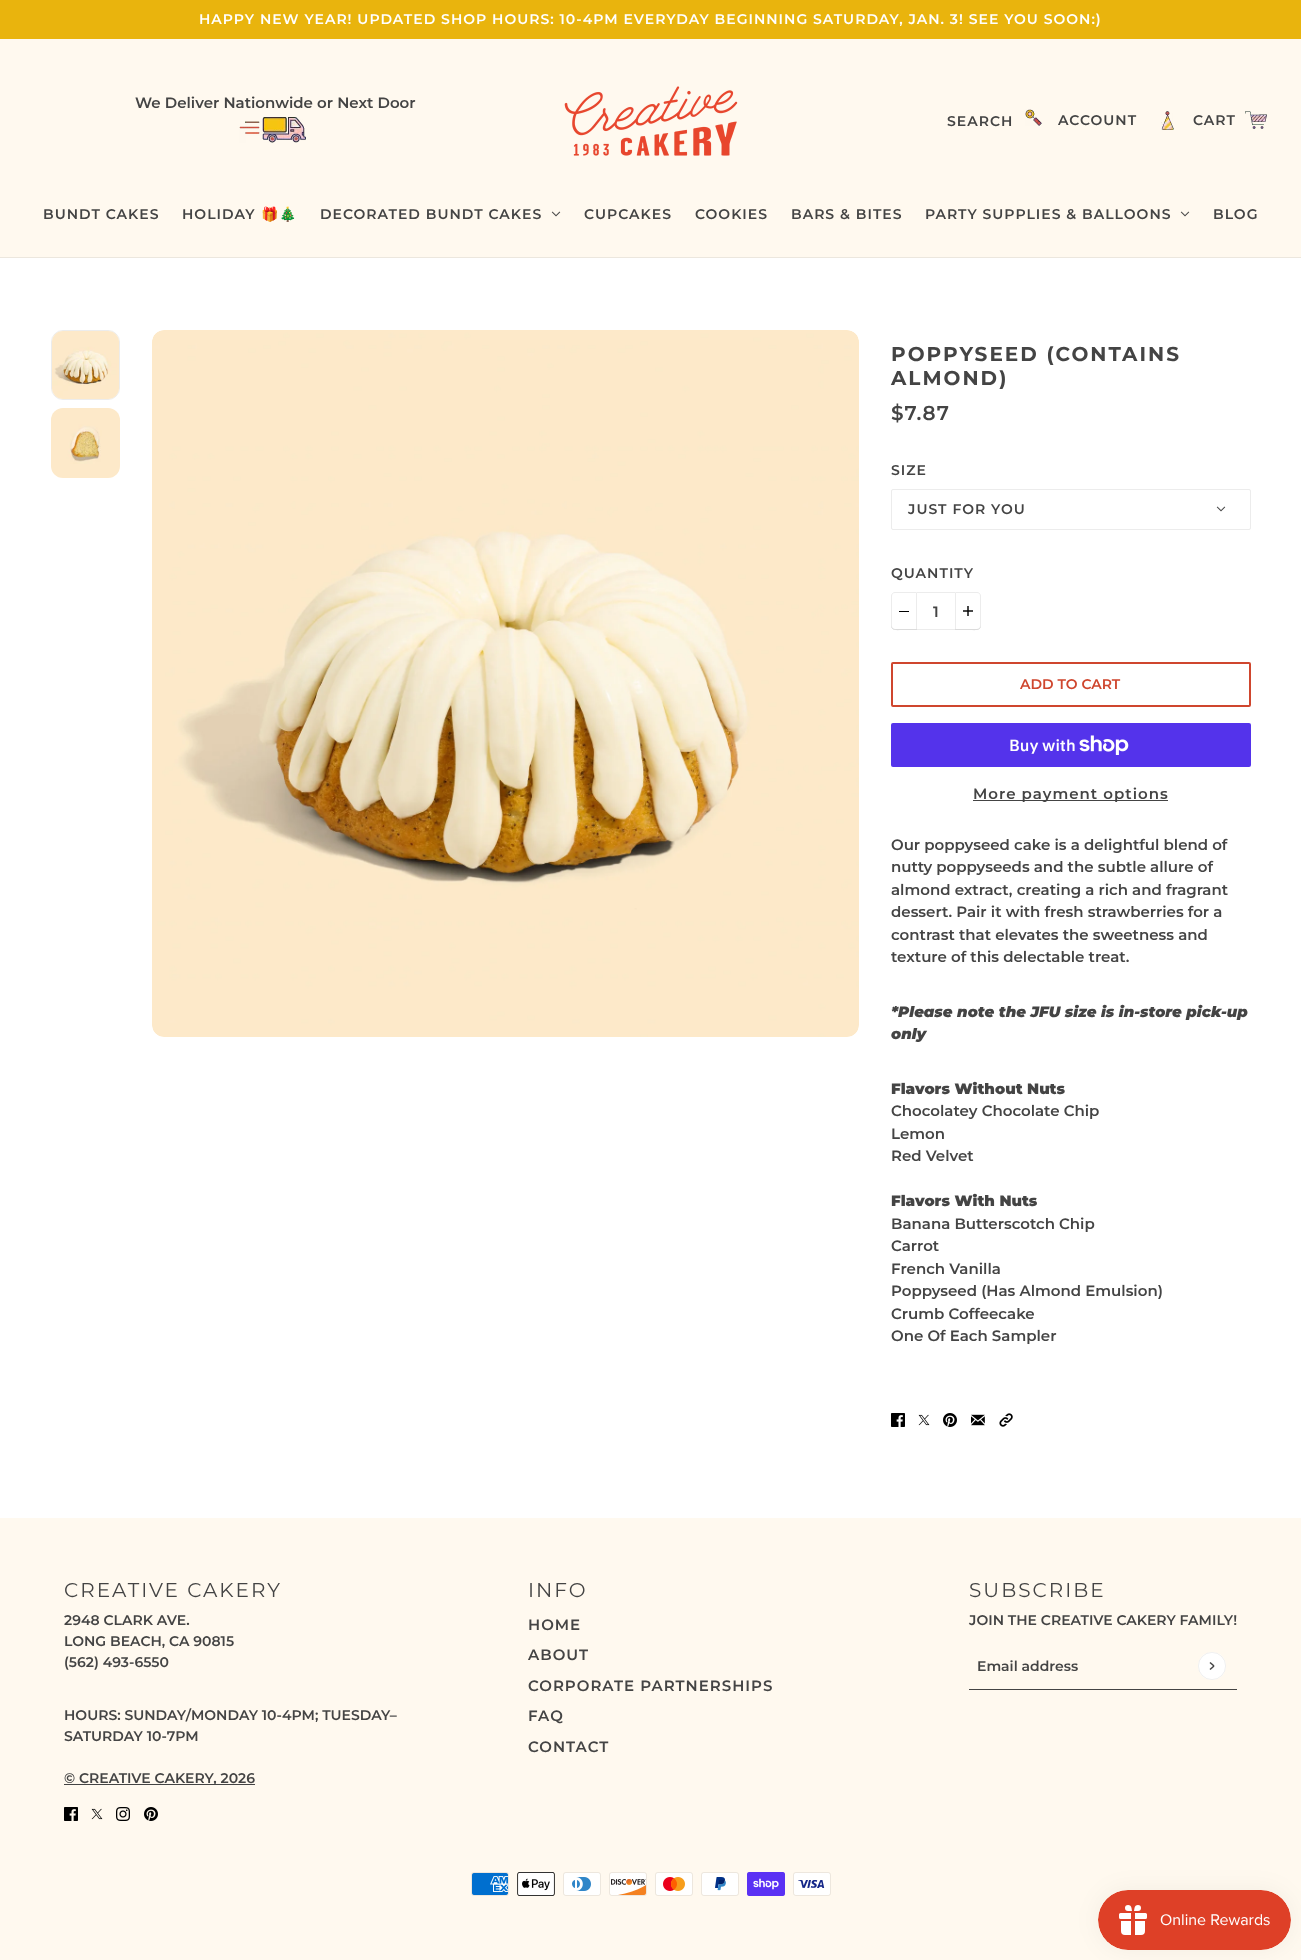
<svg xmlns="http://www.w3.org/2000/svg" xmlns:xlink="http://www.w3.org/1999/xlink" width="1301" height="1960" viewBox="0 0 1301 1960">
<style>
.cls-1{font:600 14px Montserrat;letter-spacing:1px;fill:#ffffff}
.cls-2{font:600 15px Montserrat;fill:#444444}
.cls-3{font:600 14px Montserrat;letter-spacing:1px;fill:#444444}
.cls-4{font:bold 14px Noto Color Emoji;letter-spacing:1px;fill:#444444}
.cls-5{font:bold 20px Montserrat;letter-spacing:2px;fill:#444444}
.cls-6{font:600 20px Montserrat;letter-spacing:1px;fill:#444444}
.cls-7{font:600 14px Montserrat;fill:#cf462e}
.cls-8{font:600 16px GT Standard;fill:#ffffff}
.cls-9{font:600 15px Montserrat;letter-spacing:1px;fill:#444444}
.cls-10{font:italic 900 15px Montserrat;fill:#444444}
.cls-11{font:900 15px Montserrat;fill:#444444}
.cls-12{font:20px Montserrat;letter-spacing:2px;fill:#444444}
.cls-13{font:600 14px Montserrat;fill:#444444}
</style>
<rect width="100%" height="100%" fill="#ffffff"/>
<rect fill="#e9b40d" x="0" y="0" width="1301" height="39"/>
<rect fill="#fff9ef" x="0" y="39" width="1301" height="218"/>
<rect fill="#ece7de" x="0" y="257" width="1301" height="1"/>
<image xlink:href="image0.png" x="239" y="117" width="67" height="26"/>
<image xlink:href="image1.png" x="564" y="86" width="174" height="70"/>
<image xlink:href="image2.png" x="1025" y="109" width="17" height="17"/>
<image xlink:href="image3.png" x="1161" y="111" width="13" height="19"/>
<image xlink:href="image4.png" x="1245" y="111" width="22" height="18"/>
<image xlink:href="image5.png" x="551" y="211" width="10" height="6"/>
<image xlink:href="image5.png" x="1180" y="211" width="10" height="6"/>
<rect fill="none" stroke="#ececec" x="51.5" y="330.5" width="68" height="69" rx="11.5"/>
<image xlink:href="image6.png" x="52" y="331" width="67" height="68"/>
<image xlink:href="image7.png" x="51" y="408" width="69" height="70"/>
<image xlink:href="image8.png" x="152" y="330" width="707" height="707"/>
<rect fill="none" stroke="#ececec" x="891.5" y="489.5" width="359" height="40" rx="1.5"/>
<image xlink:href="image9.png" x="1216" y="506" width="10" height="6"/>
<path fill="none" stroke="#ececec" d="M895 592.5H916.5V629.5H895C893 629.5 891.5 628 891.5 626V596C891.5 594 893 592.5 895 592.5Z"/>
<path fill="#dbdbdb" d="M891 625C891 631.5 897.5 630 902.5 630H917V629H895C893 629 891 627 891 625Z"/>
<rect fill="#000000" x="899" y="611" width="10" height="1"/>
<rect fill="#ececec" x="917" y="592" width="38" height="1"/>
<rect fill="#ececec" x="917" y="629" width="38" height="1"/>
<path fill="none" stroke="#ececec" d="M955.5 592.5H977C979 592.5 980.5 594 980.5 596V626C980.5 628 979 629.5 977 629.5H955.5Z"/>
<path fill="#dbdbdb" d="M955 629V630H969.5C974.5 630 981 631.5 981 625C981 627 979 629 977 629Z"/>
<image xlink:href="image10.png" x="963" y="606" width="10" height="10"/>
<rect fill="none" stroke="#cf462e" stroke-width="2" x="892" y="663" width="358" height="43" rx="1"/>
<rect fill="#5433eb" x="891" y="723" width="360" height="44" rx="2"/>
<image xlink:href="image11.png" x="1079" y="735" width="50" height="20"/>
<rect fill="#444444" x="973" y="800" width="195" height="1"/>
<image xlink:href="image12.png" x="891" y="1413" width="14" height="14"/>
<image xlink:href="image13.png" x="918" y="1414" width="12" height="12"/>
<image xlink:href="image14.png" x="943" y="1413" width="14" height="14"/>
<image xlink:href="image15.png" x="971" y="1414" width="14" height="12"/>
<image xlink:href="image16.png" x="999" y="1413" width="14" height="14"/>
<rect fill="#fff9ef" x="0" y="1518" width="1301" height="442"/>
<rect fill="#444444" x="64" y="1784" width="191" height="1"/>
<image xlink:href="image17.png" x="64" y="1807" width="14" height="14"/>
<image xlink:href="image18.png" x="91" y="1808" width="12" height="12"/>
<image xlink:href="image19.png" x="116" y="1807" width="14" height="14"/>
<image xlink:href="image20.png" x="144" y="1807" width="14" height="14"/>
<rect fill="#444444" x="969" y="1689" width="268" height="1"/>
<circle fill="#ffffff" cx="1212" cy="1666" r="14"/>
<circle fill="none" stroke="#444444" stroke-opacity="0.1" stroke-width="0.8" cx="1212" cy="1666" r="13.6"/>
<path fill="#444444" d="M1209.5 1669L1213.5 1665.5L1214.5 1666.5L1210.5 1670Z"/>
<path fill="#444444" d="M1210.5 1662L1214.5 1665.5L1213.5 1666.5L1209.5 1663Z"/>
<image xlink:href="image21.png" x="471" y="1872" width="38" height="24"/>
<image xlink:href="image22.png" x="517" y="1872" width="38" height="24"/>
<image xlink:href="image23.png" x="563" y="1872" width="38" height="24"/>
<image xlink:href="image24.png" x="609" y="1872" width="38" height="24"/>
<image xlink:href="image25.png" x="655" y="1872" width="38" height="24"/>
<image xlink:href="image26.png" x="701" y="1872" width="38" height="24"/>
<image xlink:href="image27.png" x="747" y="1872" width="38" height="24"/>
<image xlink:href="image28.png" x="793" y="1872" width="38" height="24"/>
<rect fill="#000000" fill-opacity="0.05" filter="blur(12.5px)" x="1098" y="1890" width="193" height="60" rx="30"/>
<image xlink:href="image29.png" x="1098" y="1890" width="193" height="60"/>
<text class="cls-1" x="199" y="24">HAPPY NEW YEAR! UPDATED SHOP HOURS: 10-4PM EVERYDAY BEGINNING SATURDAY, JAN. 3! SEE YOU SOON:)</text>
<text class="cls-2" x="135" y="108">We Deliver Nationwide or Next Door</text>
<text class="cls-3" x="947" y="126">SEARCH</text>
<text class="cls-3" x="1058" y="125">ACCOUNT</text>
<text class="cls-3" x="1193" y="125">CART</text>
<text class="cls-3" x="43" y="219">BUNDT CAKES</text>
<text class="cls-3" x="182" y="219">HOLIDAY</text>
<text class="cls-4" x="261" y="219">🎁🎄</text>
<text class="cls-3" x="320" y="219">DECORATED BUNDT CAKES</text>
<text class="cls-3" x="584" y="219">CUPCAKES</text>
<text class="cls-3" x="695" y="219">COOKIES</text>
<text class="cls-3" x="791" y="219">BARS &amp; BITES</text>
<text class="cls-3" x="925" y="219">PARTY SUPPLIES &amp; BALLOONS</text>
<text class="cls-3" x="1213" y="219">BLOG</text>
<text class="cls-5"><tspan x="891" y="361">POPPYSEED (CONTAINS</tspan><tspan x="891" y="385">ALMOND)</tspan></text>
<text class="cls-6" x="891" y="420">$7.87</text>
<text class="cls-3" x="891" y="475">SIZE</text>
<text class="cls-3" x="908" y="514">JUST FOR YOU</text>
<text class="cls-3" x="891" y="578">QUANTITY</text>
<text class="cls-2" x="933" y="617">1</text>
<text class="cls-7" x="1020" y="689">ADD TO CART</text>
<text class="cls-8" x="1009" y="751">Buy with</text>
<text class="cls-9" x="973" y="799">More payment options</text>
<text class="cls-2"><tspan x="891" y="850">Our poppyseed cake is a delightful blend of</tspan><tspan x="891" y="872">nutty poppyseeds and the subtle allure of</tspan><tspan x="891" y="895">almond extract, creating a rich and fragrant</tspan><tspan x="891" y="917">dessert. Pair it with fresh strawberries for a</tspan><tspan x="891" y="940">contrast that elevates the sweetness and</tspan><tspan x="891" y="962">texture of this delectable treat.</tspan></text>
<text class="cls-10"><tspan x="891" y="1017">*Please note the JFU size is in-store pick-up</tspan><tspan x="891" y="1039">only</tspan></text>
<text class="cls-11" x="891" y="1094">Flavors Without Nuts</text>
<text class="cls-2"><tspan x="891" y="1116">Chocolatey Chocolate Chip</tspan><tspan x="891" y="1139">Lemon</tspan><tspan x="891" y="1161">Red Velvet</tspan></text>
<text class="cls-11" x="891" y="1206">Flavors With Nuts</text>
<text class="cls-2"><tspan x="891" y="1229">Banana Butterscotch Chip</tspan><tspan x="891" y="1251">Carrot</tspan><tspan x="891" y="1274">French Vanilla</tspan><tspan x="891" y="1296">Poppyseed (Has Almond Emulsion)</tspan><tspan x="891" y="1319">Crumb Coffeecake</tspan><tspan x="891" y="1341">One Of Each Sampler</tspan></text>
<text class="cls-12" x="64" y="1597">CREATIVE CAKERY</text>
<text class="cls-13"><tspan x="64" y="1625">2948 CLARK AVE.</tspan><tspan x="64" y="1646">LONG BEACH, CA 90815</tspan><tspan x="64" y="1667">(562) 493-6550</tspan></text>
<text class="cls-13"><tspan x="64" y="1720">HOURS: SUNDAY/MONDAY 10-4PM; TUESDAY–</tspan><tspan x="64" y="1741">SATURDAY 10-7PM</tspan></text>
<text class="cls-13" x="64" y="1783">© CREATIVE CAKERY, 2026</text>
<text class="cls-12" x="528" y="1597">INFO</text>
<text class="cls-9" x="528" y="1630">HOME</text>
<text class="cls-9" x="528" y="1660">ABOUT</text>
<text class="cls-9" x="528" y="1691">CORPORATE PARTNERSHIPS</text>
<text class="cls-9" x="528" y="1721">FAQ</text>
<text class="cls-9" x="528" y="1752">CONTACT</text>
<text class="cls-12" x="969" y="1597">SUBSCRIBE</text>
<text class="cls-13" x="969" y="1625">JOIN THE CREATIVE CAKERY FAMILY!</text>
<text class="cls-13" x="977" y="1671">Email address</text>
</svg>
